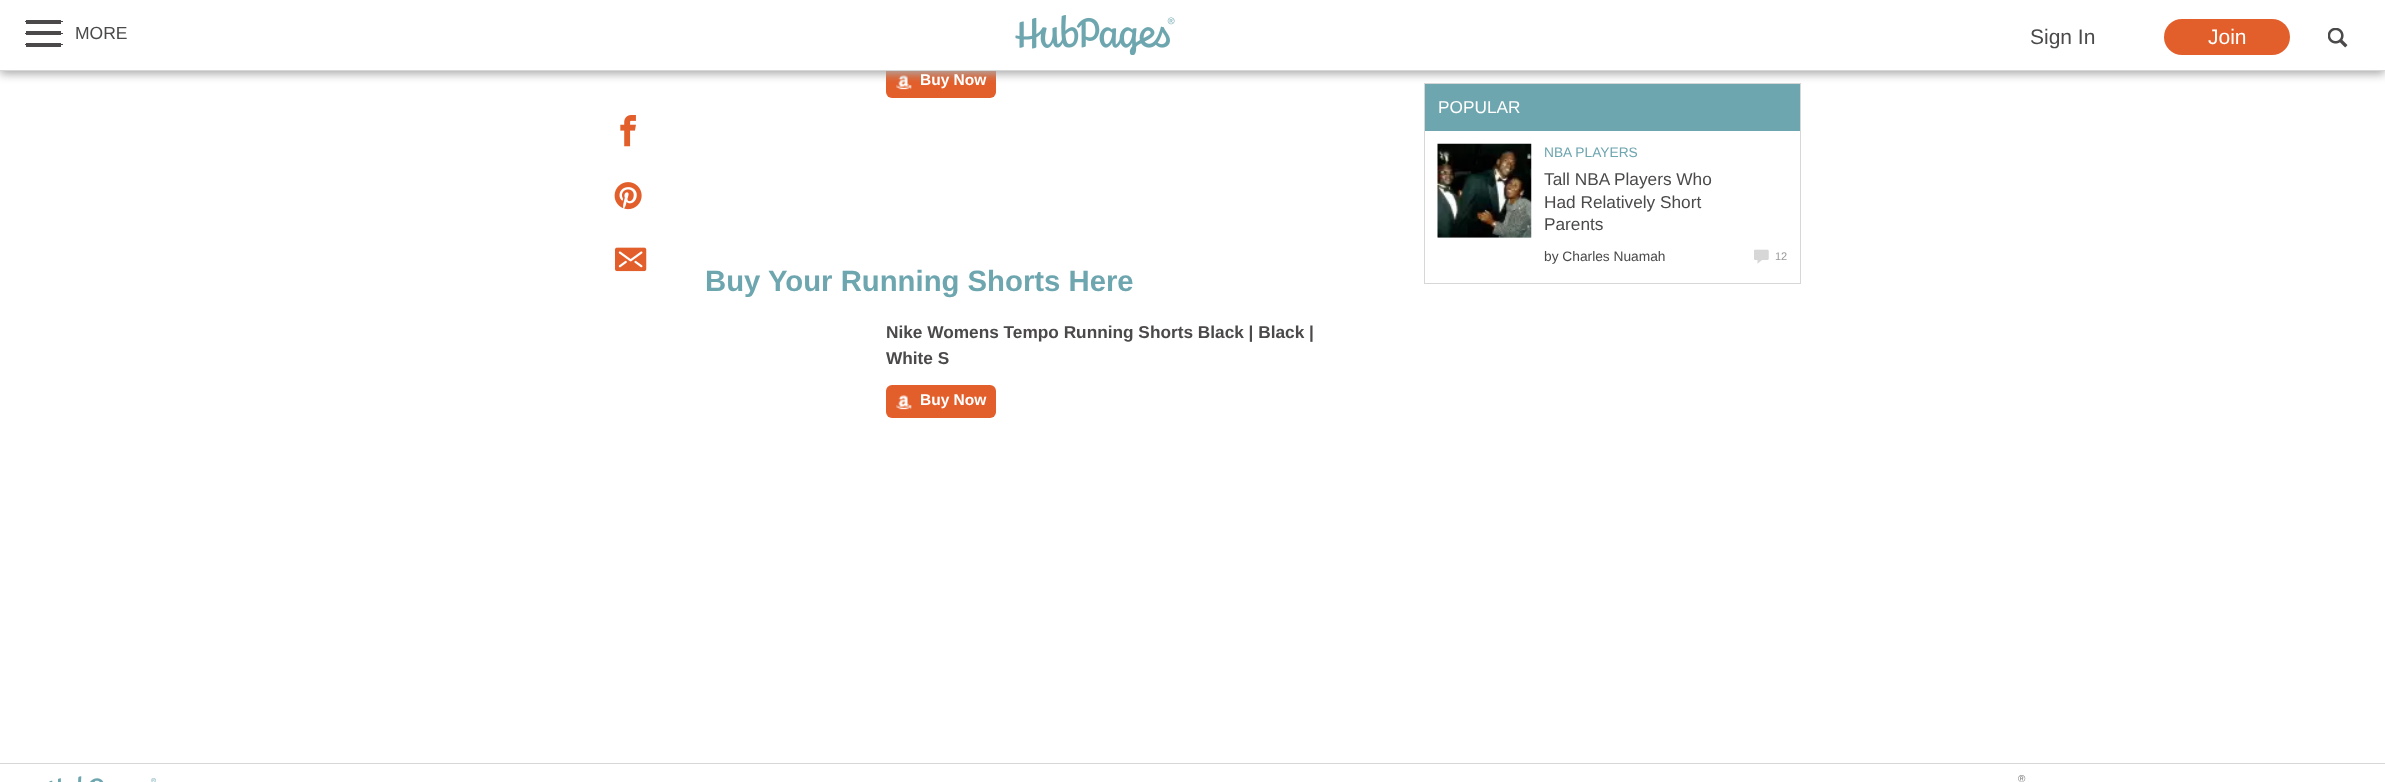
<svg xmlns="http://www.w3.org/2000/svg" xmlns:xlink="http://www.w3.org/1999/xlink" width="2385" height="782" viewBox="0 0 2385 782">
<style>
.cls-1{font:17.5px Liberation Sans;fill:#4b4949}
.cls-2{font:21px Liberation Sans;fill:#4b4949}
.cls-3{font:21px Liberation Sans;fill:#ffffff}
.cls-4{font:bold 15.5px Liberation Sans;fill:#ffffff}
.cls-5{font:bold 29.3px Liberation Sans;fill:#6ea6af}
.cls-6{font:bold 17.25px Liberation Sans;fill:#4b4949}
.cls-7{font:17.25px Liberation Sans;fill:#ffffff}
.cls-8{font:13.75px Liberation Sans;fill:#6ea6af}
.cls-9{font:17.25px Liberation Sans;fill:#4b4949}
.cls-10{font:13.75px Liberation Sans;fill:#4b4949}
.cls-11{font:11px Liberation Sans;fill:#999999}
.cls-12{font:10px Liberation Sans;fill:#767676}
</style>
<rect width="100%" height="100%" fill="#ffffff"/>
<rect fill="#e25e2b" x="886" y="65" width="110" height="33" rx="6"/>
<image xlink:href="image5.png" x="896" y="75" width="16" height="15"/>
<rect fill="none" stroke="#d7d7d7" x="1424.5" y="83.5" width="376" height="200"/>
<rect fill="#6ea6af" x="1425" y="84" width="375" height="47"/>
<rect fill="#aaaaaa" filter="blur(5px)" x="0" y="3" width="2385" height="71"/>
<rect fill="#ffffff" x="0" y="0" width="2385" height="70"/>
<rect fill="#d7d7d7" x="0" y="70" width="2385" height="1"/>
<rect fill="#4b4949" x="59" y="21" width="4" height="1"/>
<rect fill="#4b4949" x="26" y="20" width="35" height="4"/>
<rect fill="#4b4949" x="25" y="21" width="4" height="1"/>
<rect fill="#4b4949" x="59" y="33" width="4" height="1"/>
<rect fill="#4b4949" x="26" y="31" width="35" height="4"/>
<rect fill="#4b4949" x="25" y="33" width="4" height="1"/>
<rect fill="#4b4949" x="59" y="44" width="4" height="1"/>
<rect fill="#4b4949" x="26" y="43" width="35" height="4"/>
<rect fill="#4b4949" x="25" y="44" width="4" height="1"/>
<image xlink:href="image0.png" x="1015" y="15" width="160" height="40"/>
<rect fill="#e25e2b" x="2164" y="19" width="126" height="36" rx="18"/>
<image xlink:href="image1.png" x="2328" y="28" width="20" height="20"/>
<image xlink:href="image2.png" x="620" y="115" width="16" height="32"/>
<image xlink:href="image3.png" x="614" y="182" width="28" height="28"/>
<image xlink:href="image4.png" x="615" y="247" width="32" height="25"/>
<rect fill="#e25e2b" x="886" y="385" width="110" height="33" rx="6"/>
<image xlink:href="image5.png" x="896" y="395" width="16" height="15"/>
<rect fill="#d7d7d7" x="1438" y="237" width="93" height="1"/>
<image xlink:href="image6.png" x="1437" y="143" width="95" height="95"/>
<image xlink:href="image7.png" x="1754" y="249" width="15" height="15"/>
<rect fill="#d7d7d7" x="0" y="763" width="2385" height="1"/>
<image xlink:href="image8.png" x="49" y="776" width="107" height="6"/>
<text class="cls-1" x="75" y="39">MORE</text>
<text class="cls-2" x="2030" y="44">Sign In</text>
<text class="cls-3" x="2208" y="44">Join</text>
<text class="cls-4" x="920" y="85">Buy Now</text>
<text class="cls-5" x="705" y="291">Buy Your Running Shorts Here</text>
<text class="cls-6"><tspan x="886" y="338">Nike Womens Tempo Running Shorts Black | Black |</tspan><tspan x="886" y="364">White S</tspan></text>
<text class="cls-4" x="920" y="405">Buy Now</text>
<text class="cls-7" x="1438" y="113">POPULAR</text>
<text class="cls-8" x="1544" y="157">NBA PLAYERS</text>
<text class="cls-9"><tspan x="1544" y="185">Tall NBA Players Who</tspan><tspan x="1544" y="208">Had Relatively Short</tspan><tspan x="1544" y="230">Parents</tspan></text>
<text class="cls-10" x="1544" y="261">by Charles Nuamah</text>
<text class="cls-11" x="1775" y="260">12</text>
<text class="cls-12" x="2018" y="782">®</text>
</svg>
